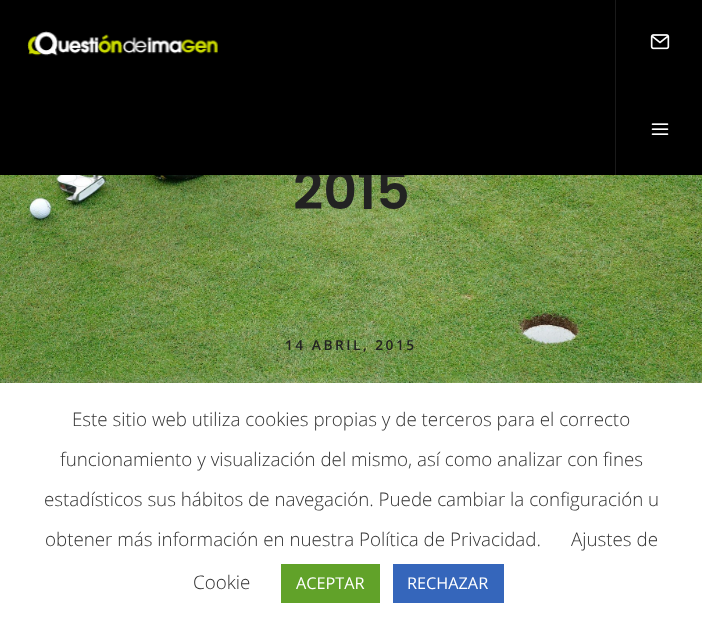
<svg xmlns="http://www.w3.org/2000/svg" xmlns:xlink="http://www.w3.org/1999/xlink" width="702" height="623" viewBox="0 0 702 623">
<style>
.cls-1{font:600 52.5px Poppins;fill:#222222}
.cls-2{font:600 13.75px Open Sans;letter-spacing:2.5px;fill:#222222}
.cls-3{font:300 18.75px Open Sans;fill:#333333}
.cls-4{font:16.25px Open Sans;fill:#ffffff}
</style>
<rect width="100%" height="100%" fill="#ffffff"/>
<image xlink:href="image3.png" x="0" y="175" width="702" height="208"/>
<rect fill="#acabab" fill-opacity="0.3" filter="blur(6px)" x="0" y="381" width="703" height="242"/>
<rect fill="#ffffff" x="0" y="383" width="702" height="240"/>
<rect fill="#61a229" x="281" y="564" width="99" height="39"/>
<rect fill="#3566bb" x="393" y="564" width="111" height="39"/>
<text class="cls-1" x="293" y="209">2015</text>
<rect fill="#000000" x="0" y="0" width="702" height="175"/>
<image xlink:href="image2.png" x="651" y="123" width="18" height="12"/>
<image xlink:href="image1.png" x="650" y="34" width="20" height="16"/>
<rect fill="#1a1a1a" x="615" y="0" width="1" height="175"/>
<image xlink:href="image0.png" x="27" y="31" width="191" height="25"/>
<text class="cls-2" x="285" y="350">14 ABRIL, 2015</text>
<text class="cls-3" x="72" y="426">Este sitio web utiliza cookies propias y de terceros para el correcto</text>
<text class="cls-3" x="60" y="466">funcionamiento y visualización del mismo, así como analizar con fines</text>
<text class="cls-3" x="44" y="506">estadísticos sus hábitos de navegación. Puede cambiar la configuración u</text>
<text class="cls-3" x="45" y="546">obtener más información en nuestra Política de Privacidad.</text>
<text class="cls-3" x="571" y="546">Ajustes de</text>
<text class="cls-3" x="193" y="589">Cookie</text>
<text class="cls-4" x="296" y="589">ACEPTAR</text>
<text class="cls-4" x="407" y="589">RECHAZAR</text>
</svg>
